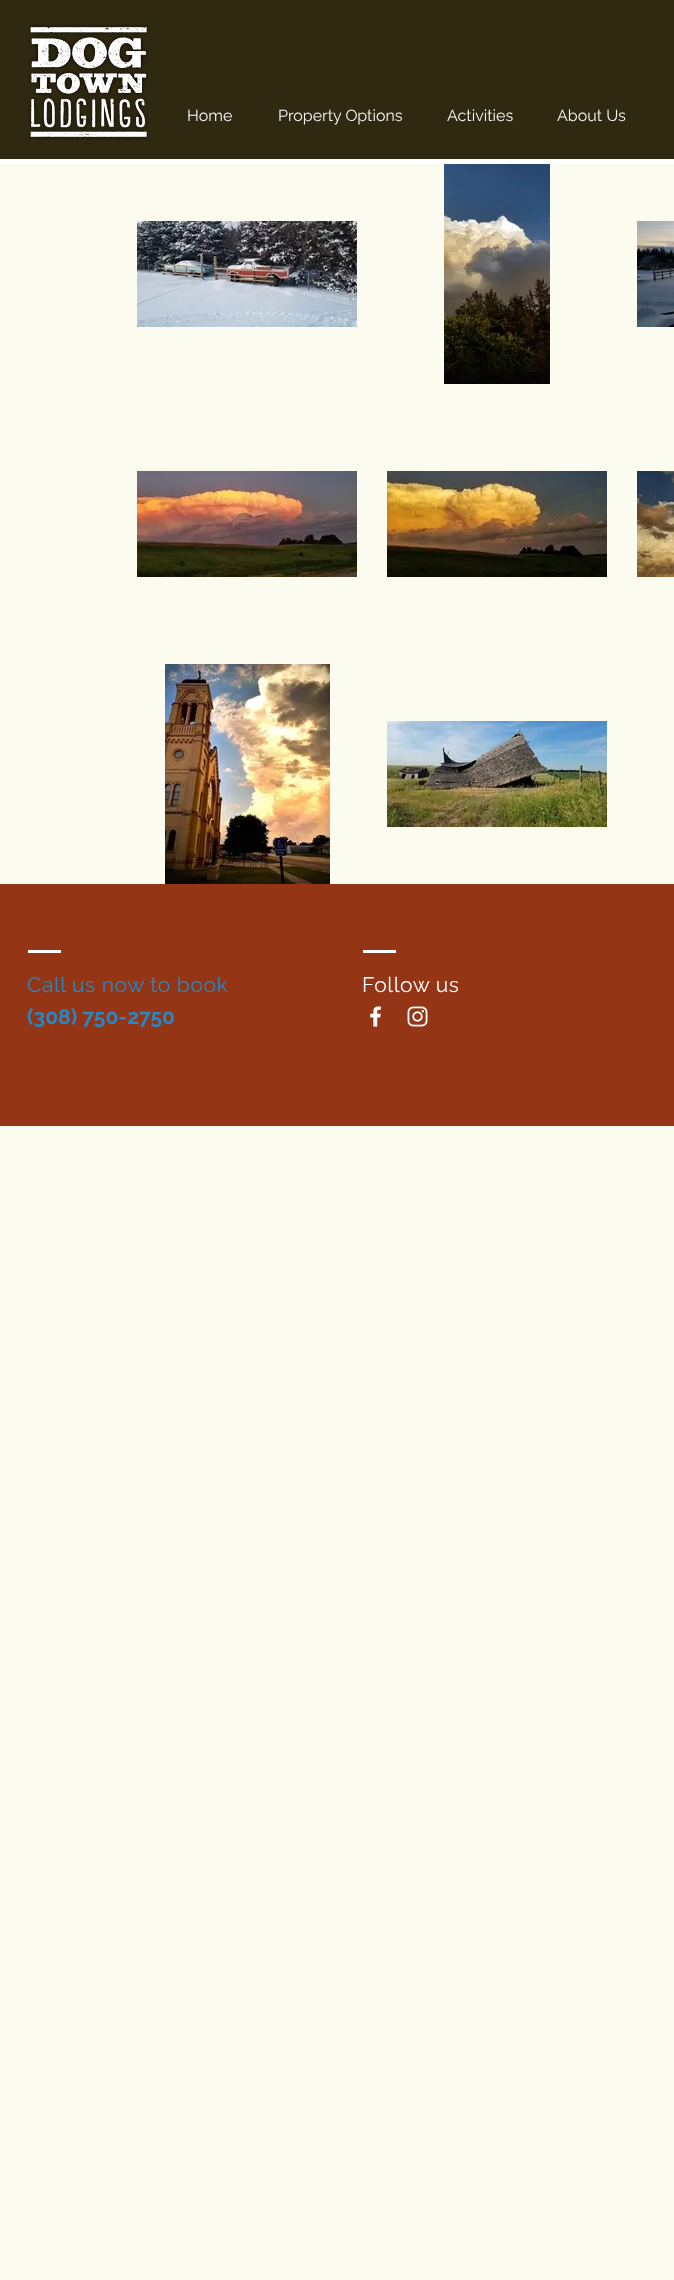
<svg xmlns="http://www.w3.org/2000/svg" xmlns:xlink="http://www.w3.org/1999/xlink" width="674" height="2280" viewBox="0 0 674 2280">
<style>
.cls-1{font:16px Raleway;fill:#f4f4f4}
.cls-2{font:21px Raleway;letter-spacing:0.6px;fill:#2389c9}
.cls-3{font:bold 21px Raleway;fill:#2389c9}
.cls-4{font:21px Raleway;letter-spacing:0.6px;fill:#ffffff}
</style>
<rect width="100%" height="100%" fill="#fcfbf0"/>
<rect fill="#302911" x="0" y="0" width="674" height="159"/>
<rect fill="#ffffff" x="0" y="159" width="674" height="5"/>
<image xlink:href="image0.png" x="28" y="24" width="121" height="116"/>
<image xlink:href="image1.png" x="137" y="221" width="220" height="106"/>
<image xlink:href="image2.png" x="444" y="164" width="106" height="220"/>
<image xlink:href="image3.png" x="637" y="221" width="37" height="106"/>
<image xlink:href="image4.png" x="137" y="471" width="220" height="106"/>
<image xlink:href="image5.png" x="387" y="471" width="220" height="106"/>
<image xlink:href="image6.png" x="637" y="471" width="37" height="106"/>
<image xlink:href="image7.png" x="165" y="664" width="165" height="220"/>
<image xlink:href="image8.png" x="387" y="721" width="220" height="106"/>
<rect fill="#943616" x="0" y="884" width="674" height="242"/>
<rect fill="#ffffff" x="28" y="950" width="33" height="3"/>
<rect fill="#ffffff" x="363" y="950" width="33" height="3"/>
<image xlink:href="image9.png" x="370" y="1006" width="11" height="21"/>
<image xlink:href="image10.png" x="407" y="1006" width="21" height="21"/>
<text class="cls-1" x="187" y="121">Home</text>
<text class="cls-1" x="278" y="121">Property Options</text>
<text class="cls-1" x="447" y="121">Activities</text>
<text class="cls-1" x="557" y="121">About Us</text>
<text class="cls-2" x="27" y="992">Call us now to book</text>
<text class="cls-3" x="27" y="1024">(308) 750-2750</text>
<text class="cls-4" x="362" y="992">Follow us</text>
</svg>
